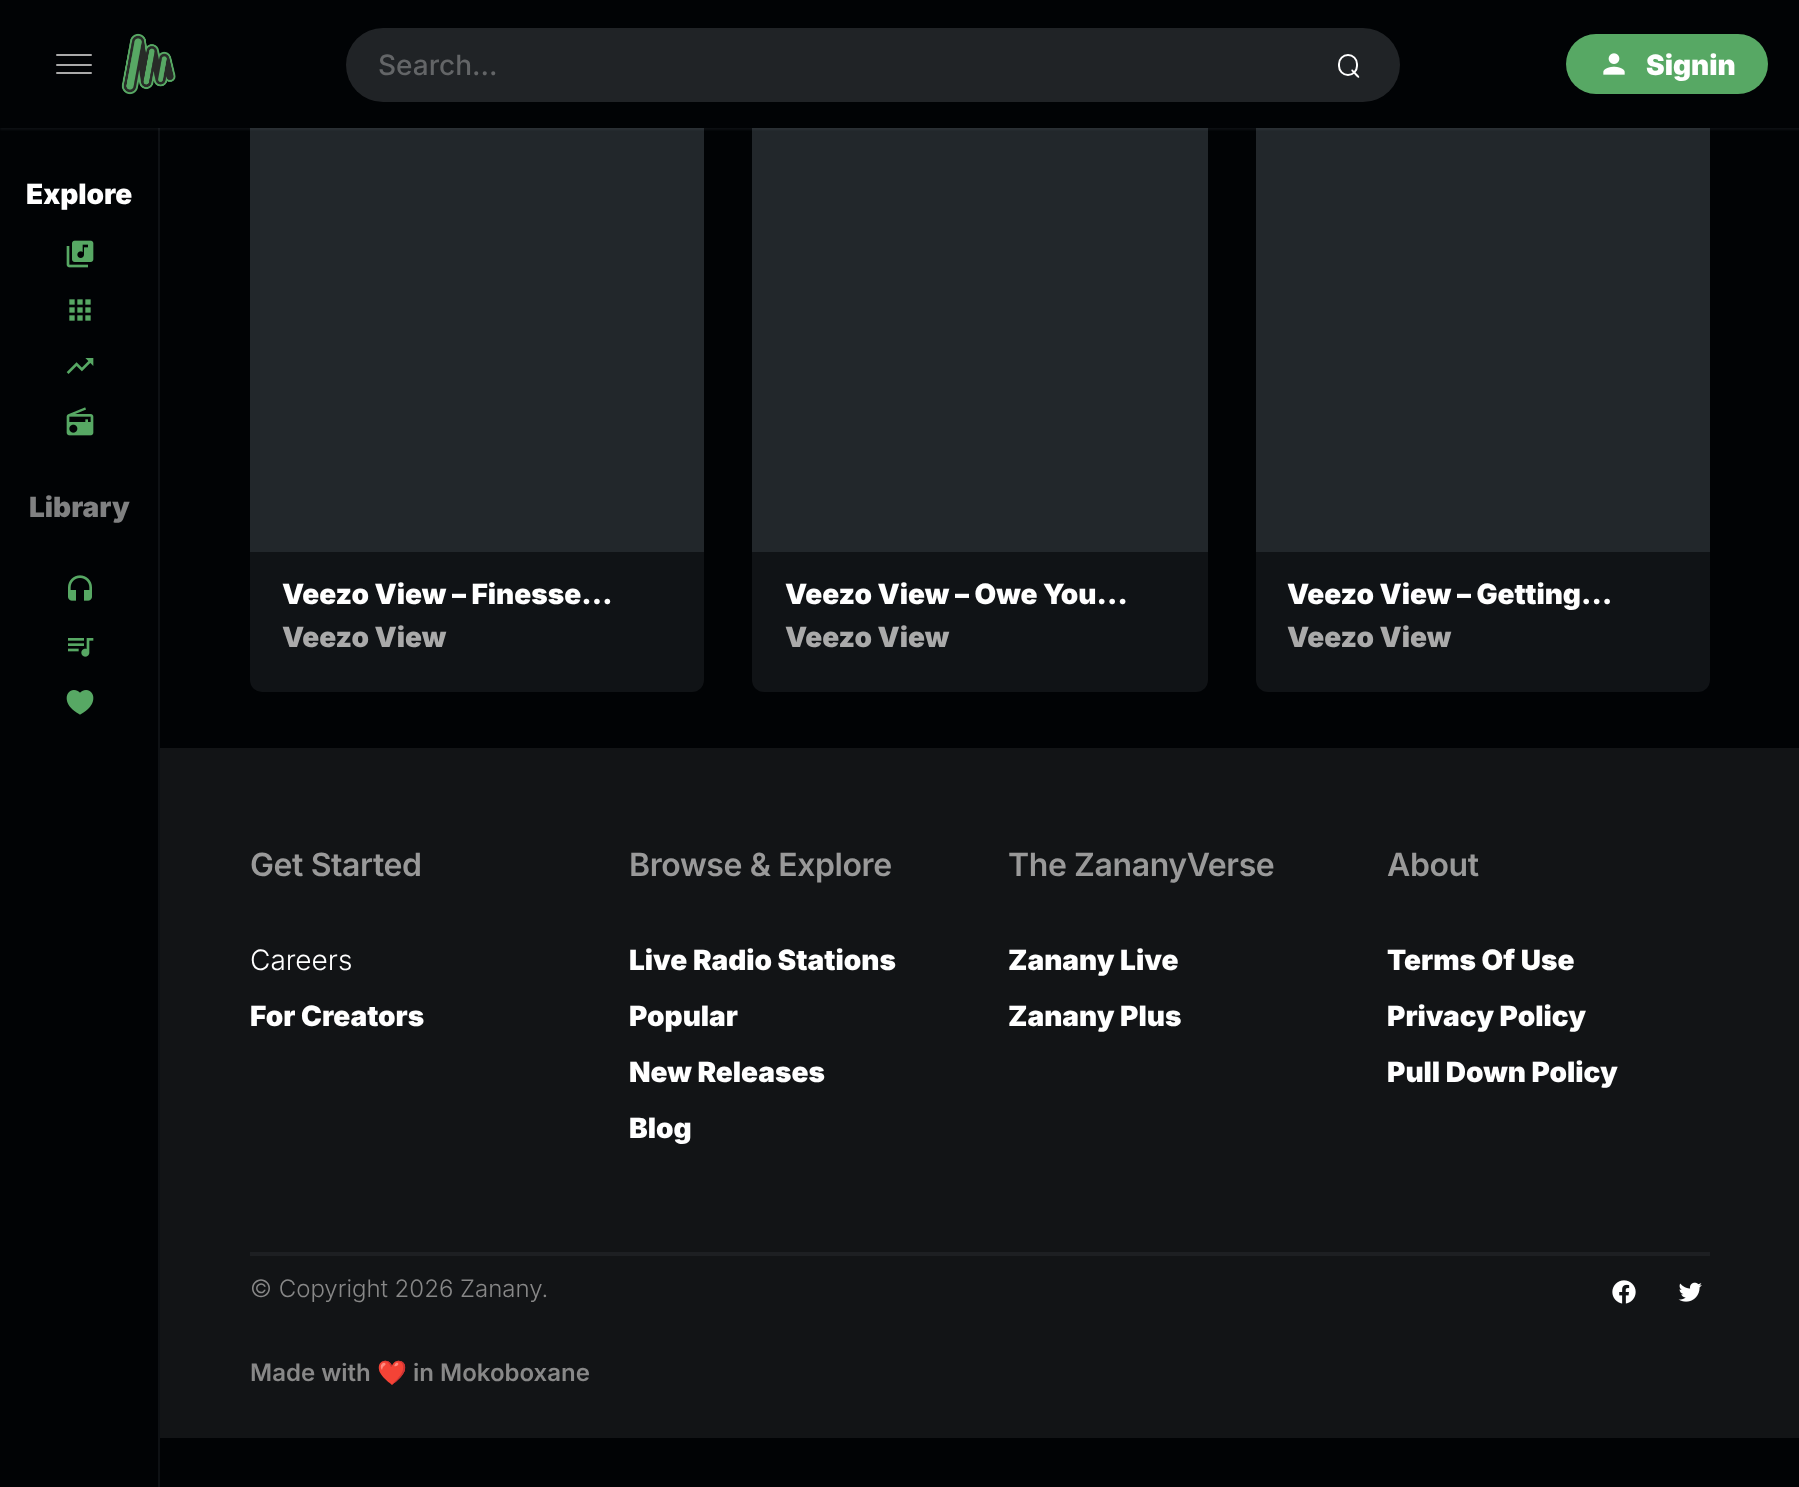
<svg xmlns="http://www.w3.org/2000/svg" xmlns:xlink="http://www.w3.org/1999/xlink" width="1799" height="1487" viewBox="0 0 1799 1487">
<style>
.cls-1{font:500 28px Inter;fill:#636567}
.cls-2{font:900 28px Inter;fill:#ffffff}
.cls-3{font:900 28px Inter;fill:#808182}
.cls-4{font:900 28px Inter;fill:#aaaaaa}
.cls-5{font:600 32px Inter;letter-spacing:-0.4px;fill:#999999}
.cls-6{font:300 28px Inter;fill:#ffffff}
.cls-7{font:300 24px Inter;fill:#888888}
.cls-8{font:600 24px Inter;fill:#888888}
.cls-9{font:bold 24px Noto Color Emoji;fill:#888888}
</style>
<rect width="100%" height="100%" fill="#010305"/>
<rect fill="#0e1114" x="158" y="128" width="2" height="1359"/>
<rect fill="#101316" x="250" y="98" width="454" height="594" rx="12"/>
<rect fill="#6e7882" fill-opacity="0.2" x="250" y="128" width="454" height="424"/>
<rect fill="#101316" x="752" y="98" width="456" height="594" rx="12"/>
<rect fill="#6e7882" fill-opacity="0.2" x="752" y="128" width="456" height="424"/>
<rect fill="#101316" x="1256" y="98" width="454" height="594" rx="12"/>
<rect fill="#6e7882" fill-opacity="0.2" x="1256" y="128" width="454" height="424"/>
<rect fill="#828c96" fill-opacity="0.1" filter="blur(1px)" x="0" y="2" width="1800" height="128"/>
<rect fill="#010305" x="0" y="1" width="1799" height="127"/>
<rect fill="#aaaaaa" x="56" y="64" width="36" height="2" rx="1"/>
<rect fill="#aaaaaa" x="56" y="54" width="36" height="2" rx="1"/>
<rect fill="#aaaaaa" x="56" y="72" width="36" height="2" rx="1"/>
<image xlink:href="image0.png" x="121" y="33" width="55" height="62"/>
<rect fill="#202326" x="346" y="28" width="1054" height="74" rx="37"/>
<rect fill="none" stroke="#ffffff" stroke-width="2" x="1339" y="55" width="18" height="20" rx="9"/>
<path fill="#ffffff" d="M1353 70L1358 75C1360.5 77.5 1359 79 1356.5 76.5L1351.5 71C1351 70 1352 69 1353 70Z"/>
<rect fill="#57a864" x="1566" y="34" width="202" height="60" rx="30"/>
<image xlink:href="image1.png" x="1603" y="53" width="22" height="22"/>
<image xlink:href="image2.png" x="66" y="240" width="28" height="28"/>
<image xlink:href="image3.png" x="69" y="299" width="22" height="22"/>
<image xlink:href="image4.png" x="66" y="358" width="28" height="16"/>
<image xlink:href="image5.png" x="66" y="407" width="28" height="29"/>
<image xlink:href="image6.png" x="68" y="575" width="24" height="26"/>
<image xlink:href="image7.png" x="68" y="638" width="26" height="19"/>
<image xlink:href="image8.png" x="66" y="690" width="28" height="25"/>
<rect fill="#121416" x="160" y="748" width="1639" height="690"/>
<rect fill="#1d1f22" x="250" y="1252" width="1460" height="4"/>
<image xlink:href="image9.png" x="1612" y="1280" width="24" height="24"/>
<image xlink:href="image10.png" x="1678" y="1282" width="24" height="20"/>
<text class="cls-1" x="378" y="75">Search...</text>
<text class="cls-2" x="1646" y="75">Signin</text>
<text class="cls-2" x="26" y="204">Explore</text>
<text class="cls-3" x="29" y="517">Library</text>
<text class="cls-2" x="282" y="604">Veezo View – Finesse…</text>
<text class="cls-4" x="282" y="647">Veezo View</text>
<text class="cls-2" x="785" y="604">Veezo View – Owe You…</text>
<text class="cls-4" x="785" y="647">Veezo View</text>
<text class="cls-2" x="1287" y="604">Veezo View – Getting…</text>
<text class="cls-4" x="1287" y="647">Veezo View</text>
<text class="cls-5" x="250" y="876">Get Started</text>
<text class="cls-6" x="250" y="970">Careers</text>
<text class="cls-2" x="250" y="1026">For Creators</text>
<text class="cls-5" x="629" y="876">Browse &amp; Explore</text>
<text class="cls-2" x="629" y="970">Live Radio Stations</text>
<text class="cls-2" x="629" y="1026">Popular</text>
<text class="cls-2" x="629" y="1082">New Releases</text>
<text class="cls-2" x="629" y="1138">Blog</text>
<text class="cls-5" x="1008" y="876">The ZananyVerse</text>
<text class="cls-2" x="1008" y="970">Zanany Live</text>
<text class="cls-2" x="1008" y="1026">Zanany Plus</text>
<text class="cls-5" x="1387" y="876">About</text>
<text class="cls-2" x="1387" y="970">Terms Of Use</text>
<text class="cls-2" x="1387" y="1026">Privacy Policy</text>
<text class="cls-2" x="1387" y="1082">Pull Down Policy</text>
<text class="cls-7" x="250" y="1297">© Copyright 2026 Zanany.</text>
<text class="cls-8" x="250" y="1381">Made with</text>
<text class="cls-9" x="377" y="1381">❤️</text>
<text class="cls-8" x="413" y="1381">in Mokoboxane</text>
</svg>
